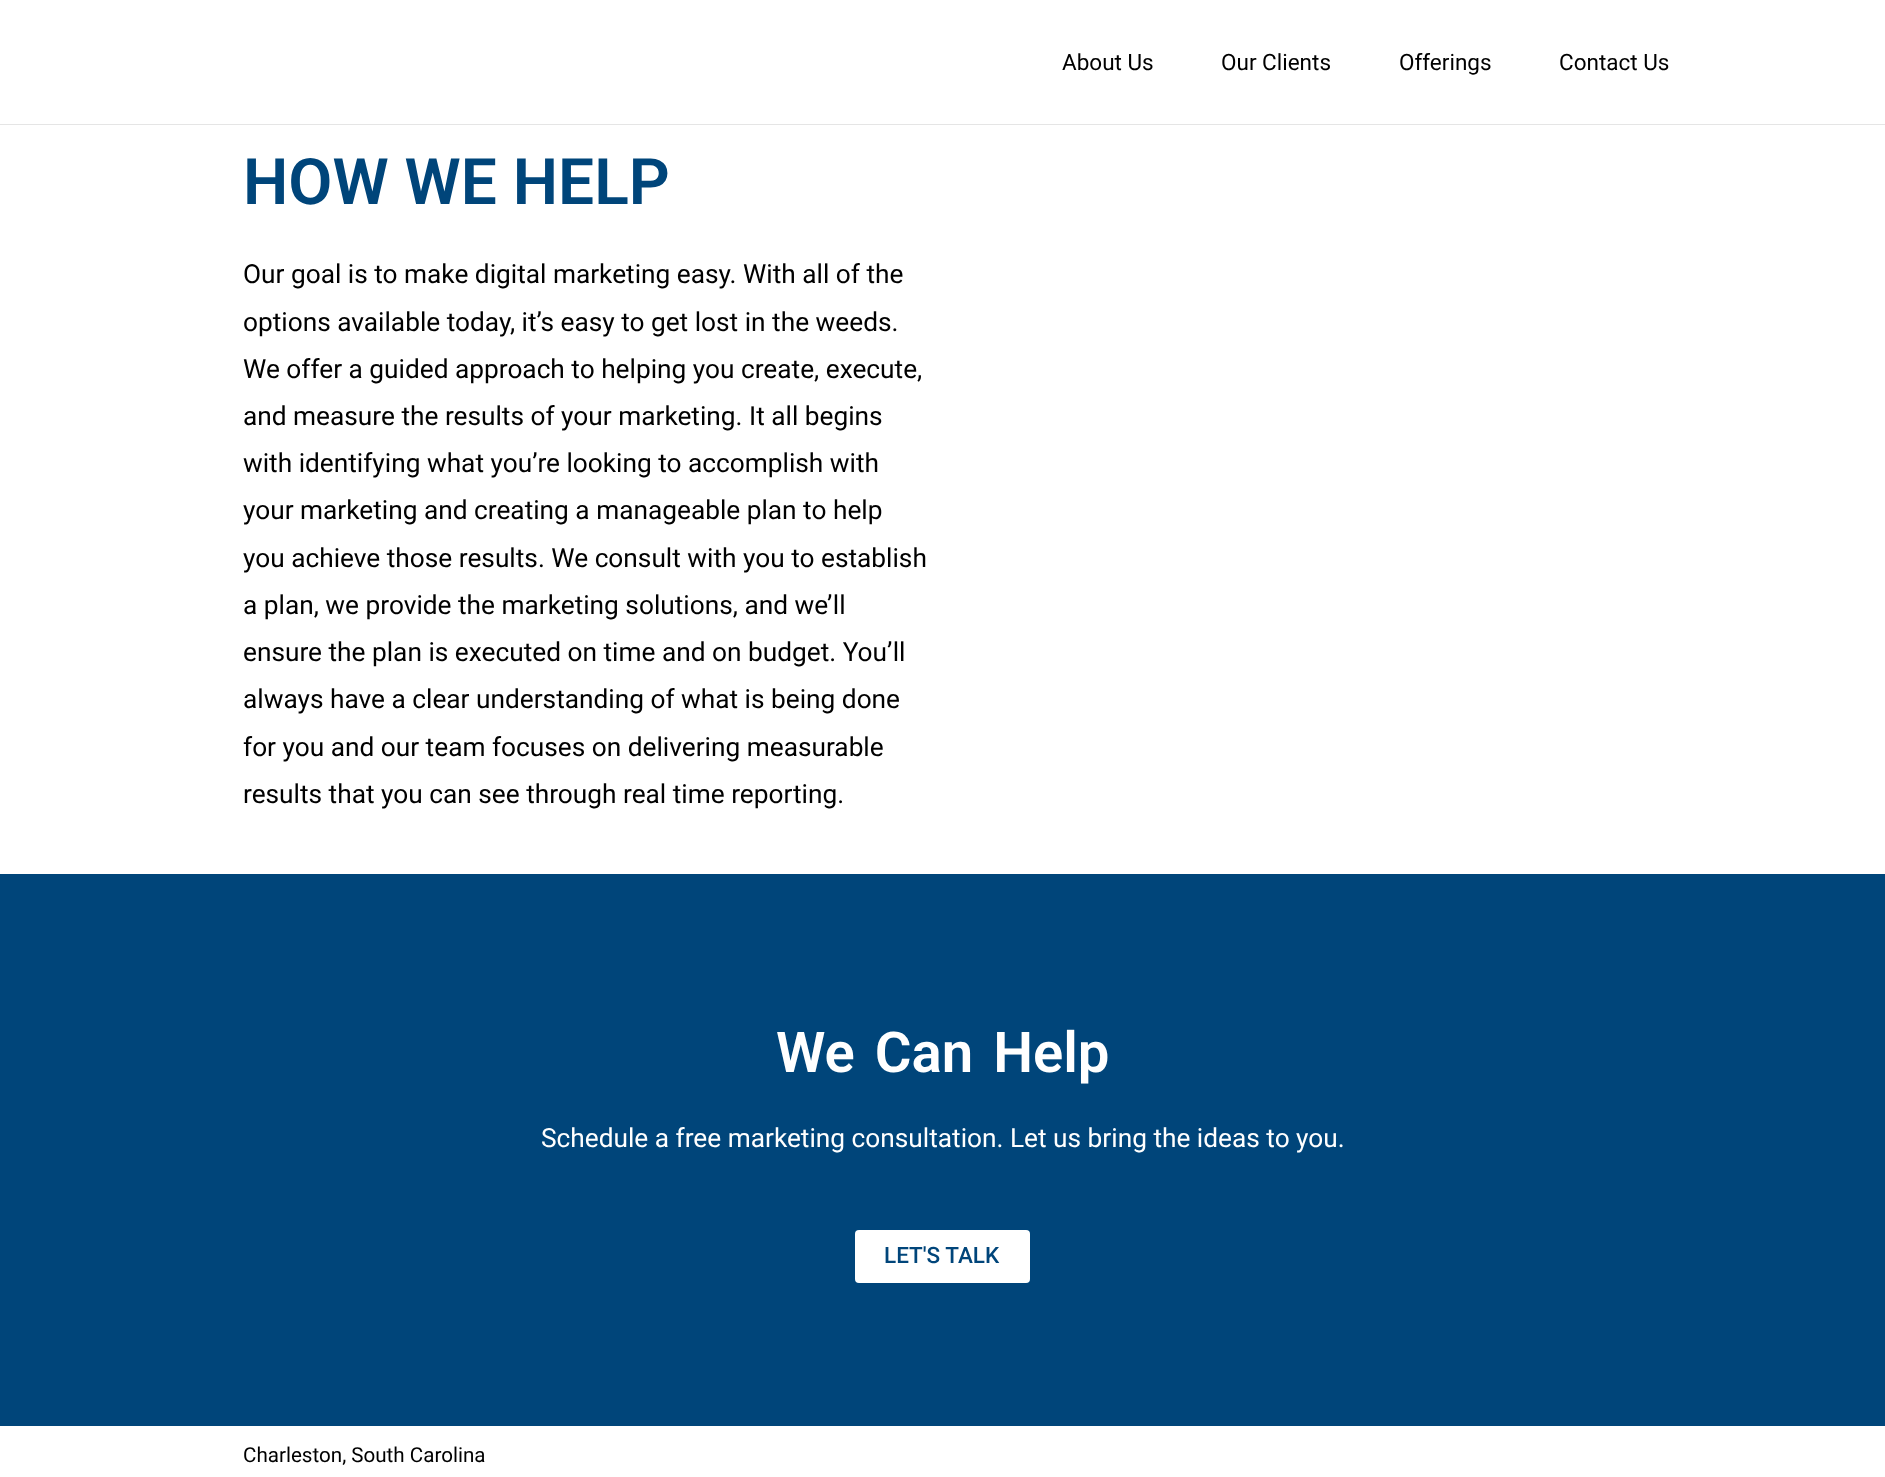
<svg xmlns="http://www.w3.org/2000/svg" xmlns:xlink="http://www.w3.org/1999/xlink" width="1885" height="1477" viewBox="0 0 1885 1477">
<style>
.cls-1{font:22.5px Roboto;fill:#000000}
.cls-2{font:600 64px Roboto;fill:#00457a}
.cls-3{font:26.25px Roboto;fill:#000000}
.cls-4{font:600 56.25px Roboto;fill:#ffffff}
.cls-5{font:26.25px Roboto;fill:#ffffff}
.cls-6{font:500 22.5px Roboto;fill:#00457a}
.cls-7{font:20.6px Roboto;fill:#000000}
</style>
<rect width="100%" height="100%" fill="#ffffff"/>
<rect fill="#e5e5e5" x="0" y="124" width="1885" height="1"/>
<rect fill="#00457a" x="0" y="874" width="1885" height="552"/>
<rect fill="#ffffff" x="855" y="1230" width="175" height="53" rx="4"/>
<text class="cls-1" x="1062" y="70">About Us</text>
<text class="cls-1" x="1221" y="70">Our Clients</text>
<text class="cls-1" x="1399" y="70">Offerings</text>
<text class="cls-1" x="1559" y="70">Contact Us</text>
<text class="cls-2" x="243" y="204">HOW WE HELP</text>
<text class="cls-3"><tspan x="243" y="283">Our goal is to make digital marketing easy. With all of the</tspan><tspan x="243" y="331">options available today, it’s easy to get lost in the weeds.</tspan><tspan x="243" y="378">We offer a guided approach to helping you create, execute,</tspan><tspan x="243" y="425">and measure the results of your marketing. It all begins</tspan><tspan x="243" y="472">with identifying what you’re looking to accomplish with</tspan><tspan x="243" y="519">your marketing and creating a manageable plan to help</tspan><tspan x="243" y="567">you achieve those results. We consult with you to establish</tspan><tspan x="243" y="614">a plan, we provide the marketing solutions, and we’ll</tspan><tspan x="243" y="661">ensure the plan is executed on time and on budget. You’ll</tspan><tspan x="243" y="708">always have a clear understanding of what is being done</tspan><tspan x="243" y="756">for you and our team focuses on delivering measurable</tspan><tspan x="243" y="803">results that you can see through real time reporting.</tspan></text>
<text class="cls-4" x="776" y="1072" word-spacing="6">We Can Help</text>
<text class="cls-5" x="541" y="1147">Schedule a free marketing consultation. Let us bring the ideas to you.</text>
<text class="cls-6" x="884" y="1263">LET'S TALK</text>
<text class="cls-7" x="243" y="1462">Charleston, South Carolina</text>
</svg>
